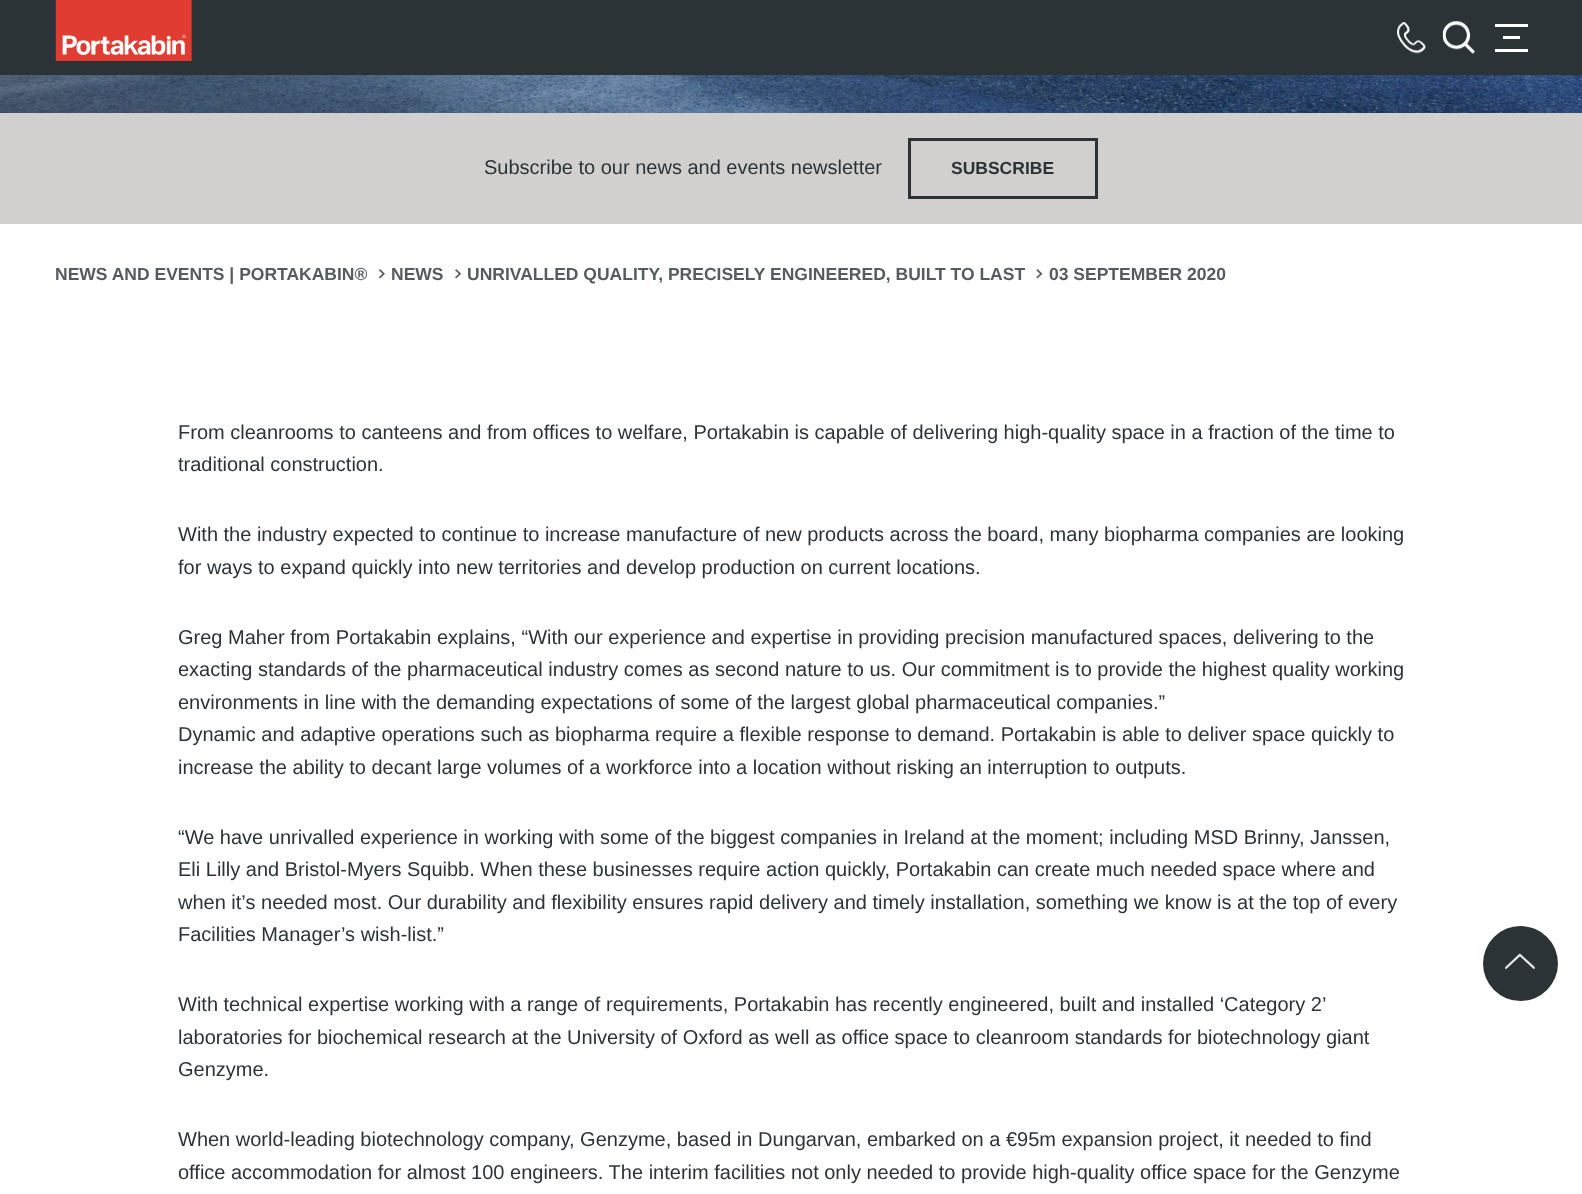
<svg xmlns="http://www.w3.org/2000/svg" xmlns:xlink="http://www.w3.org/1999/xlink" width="1582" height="1194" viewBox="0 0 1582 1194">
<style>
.cls-1{font:20px Liberation Sans;fill:#2b3337}
.cls-2{font:bold 17.5px Liberation Sans;fill:#2b3337}
.cls-3{font:bold 17.5px Liberation Sans;fill:#555c5f}
</style>
<defs>
<linearGradient id="g1" gradientUnits="userSpaceOnUse" x1="181" y1="294" x2="1401" y2="-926"><stop offset="0" stop-color="#2b3337" stop-opacity="0.6"/><stop offset="0.52" stop-color="#2b3337" stop-opacity="0"/><stop offset="1" stop-color="#000000" stop-opacity="0"/></linearGradient>
</defs>
<rect width="100%" height="100%" fill="#ffffff"/>
<rect fill="#2b3337" x="0" y="0" width="1582" height="75"/>
<image xlink:href="image0.png" x="55" y="0" width="137" height="61"/>
<image xlink:href="image1.png" x="1397" y="22" width="29" height="32"/>
<image xlink:href="image2.png" x="1442" y="21" width="33" height="33"/>
<rect fill="#ffffff" x="1495" y="49" width="33" height="3"/>
<rect fill="#ffffff" x="1495" y="24" width="33" height="3"/>
<rect fill="#ffffff" x="1503" y="36" width="17" height="3"/>
<image xlink:href="image3.png" x="0" y="75" width="1582" height="38"/>
<rect fill="url(#g1)" x="0" y="75" width="1201" height="38"/>
<rect fill="#d1d0cf" x="0" y="113" width="1582" height="111"/>
<rect fill="none" stroke="#2b3337" stroke-width="3" x="909.5" y="139.5" width="187" height="58"/>
<image xlink:href="image4.png" x="379" y="269" width="6" height="10"/>
<image xlink:href="image5.png" x="455" y="269" width="6" height="10"/>
<image xlink:href="image6.png" x="1036" y="269" width="7" height="10"/>
<circle fill="#2b3337" cx="1520.5" cy="963.5" r="37.5"/>
<image xlink:href="image7.png" x="1505" y="953" width="30" height="16"/>
<text class="cls-1" x="484" y="174">Subscribe to our news and events newsletter</text>
<text class="cls-2" x="951" y="174">SUBSCRIBE</text>
<text class="cls-3" x="55" y="280">NEWS AND EVENTS | PORTAKABIN®</text>
<text class="cls-3" x="391" y="280">NEWS</text>
<text class="cls-3" x="467" y="280">UNRIVALLED QUALITY, PRECISELY ENGINEERED, BUILT TO LAST</text>
<text class="cls-3" x="1049" y="280">03 SEPTEMBER 2020</text>
<text class="cls-1"><tspan x="178" y="439">From cleanrooms to canteens and from offices to welfare, Portakabin is capable of delivering high-quality space in a fraction of the time to</tspan><tspan x="178" y="471">traditional construction.</tspan></text>
<text class="cls-1"><tspan x="178" y="541">With the industry expected to continue to increase manufacture of new products across the board, many biopharma companies are looking</tspan><tspan x="178" y="574">for ways to expand quickly into new territories and develop production on current locations.</tspan></text>
<text class="cls-1"><tspan x="178" y="644">Greg Maher from Portakabin explains, “With our experience and expertise in providing precision manufactured spaces, delivering to the</tspan><tspan x="178" y="676">exacting standards of the pharmaceutical industry comes as second nature to us. Our commitment is to provide the highest quality working</tspan><tspan x="178" y="709">environments in line with the demanding expectations of some of the largest global pharmaceutical companies.”</tspan><tspan x="178" y="741">Dynamic and adaptive operations such as biopharma require a flexible response to demand. Portakabin is able to deliver space quickly to</tspan><tspan x="178" y="774">increase the ability to decant large volumes of a workforce into a location without risking an interruption to outputs.</tspan></text>
<text class="cls-1"><tspan x="178" y="844">“We have unrivalled experience in working with some of the biggest companies in Ireland at the moment; including MSD Brinny, Janssen,</tspan><tspan x="178" y="876">Eli Lilly and Bristol-Myers Squibb. When these businesses require action quickly, Portakabin can create much needed space where and</tspan><tspan x="178" y="909">when it’s needed most. Our durability and flexibility ensures rapid delivery and timely installation, something we know is at the top of every</tspan><tspan x="178" y="941">Facilities Manager’s wish-list.”</tspan></text>
<text class="cls-1"><tspan x="178" y="1011">With technical expertise working with a range of requirements, Portakabin has recently engineered, built and installed ‘Category 2’</tspan><tspan x="178" y="1044">laboratories for biochemical research at the University of Oxford as well as office space to cleanroom standards for biotechnology giant</tspan><tspan x="178" y="1076">Genzyme.</tspan></text>
<text class="cls-1"><tspan x="178" y="1146">When world-leading biotechnology company, Genzyme, based in Dungarvan, embarked on a €95m expansion project, it needed to find</tspan><tspan x="178" y="1179">office accommodation for almost 100 engineers. The interim facilities not only needed to provide high-quality office space for the Genzyme</tspan></text>
</svg>
